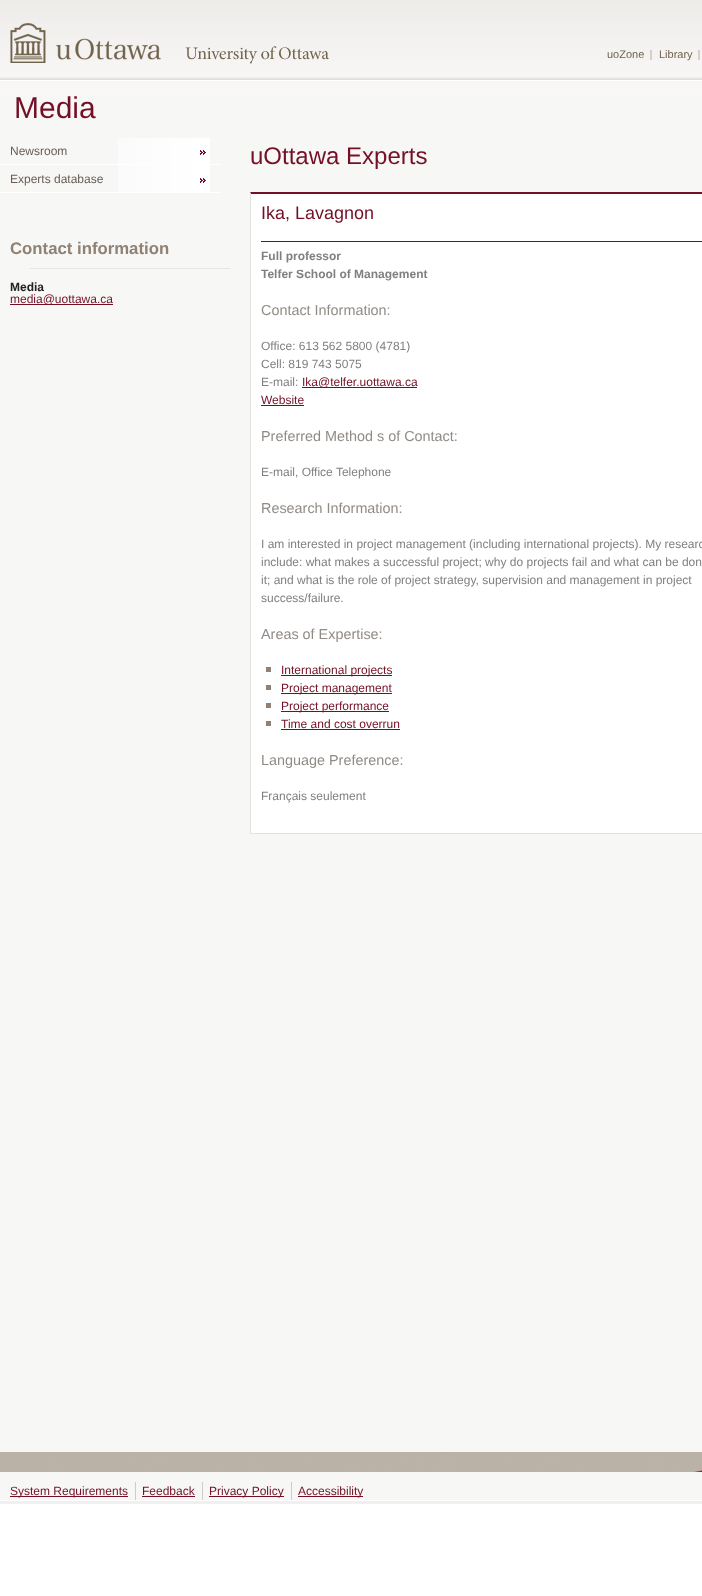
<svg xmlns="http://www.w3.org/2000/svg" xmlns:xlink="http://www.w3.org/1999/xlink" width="702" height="1596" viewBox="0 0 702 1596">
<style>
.cls-1{font:11px Liberation Sans;fill:#72634d}
.cls-2{font:30px Liberation Sans;fill:#741026}
.cls-3{font:12px Liberation Sans;fill:#695d54}
.cls-4{font:bold 16.75px Liberation Sans;fill:#8f8174}
.cls-5{font:bold 12px Liberation Sans;fill:#222222}
.cls-6{font:12px Liberation Sans;fill:#741026}
.cls-7{font:24px Liberation Sans;fill:#741026}
.cls-8{font:18px Liberation Sans;fill:#741026}
.cls-9{font:bold 12px Liberation Sans;fill:#808080}
.cls-10{font:14.4px Liberation Sans;fill:#918b86}
.cls-11{font:12px Liberation Sans;fill:#808080}
</style>
<rect width="100%" height="100%" fill="#ffffff"/>
<image xlink:href="image0.png" x="0" y="0" width="702" height="93"/>
<image xlink:href="image1.png" x="0" y="77" width="702" height="4"/>
<image xlink:href="image2.png" x="10" y="23" width="151" height="40"/>
<image xlink:href="image3.png" x="185" y="46" width="144" height="18"/>
<rect fill="#d4cfc8" x="650" y="50" width="2" height="10"/>
<rect fill="#d4cfc8" x="698" y="50" width="2" height="10"/>
<rect fill="#f7f7f6" x="0" y="93" width="702" height="1407"/>
<image xlink:href="image4.png" x="118" y="138" width="92" height="54"/>
<image xlink:href="image5.png" x="200" y="150" width="6" height="5"/>
<rect fill="#ffffff" x="0" y="164" width="220" height="1"/>
<image xlink:href="image5.png" x="200" y="178" width="6" height="5"/>
<rect fill="#ffffff" x="0" y="192" width="220" height="1"/>
<rect fill="#e8e6e2" x="30" y="268" width="200" height="1"/>
<rect fill="#741026" x="10" y="304" width="103" height="1"/>
<rect fill="#ffffff" x="251" y="194" width="451" height="639"/>
<path fill="#741026" d="M250 192H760L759 194H251Z"/>
<rect fill="#e3e2e1" x="250" y="833" width="452" height="1"/>
<path fill="#e3e2e1" d="M250 834V192L251 194V833Z"/>
<rect fill="#741026" x="261" y="241" width="441" height="1"/>
<rect fill="#741026" x="302" y="387" width="115" height="1"/>
<rect fill="#741026" x="261" y="405" width="43" height="1"/>
<rect fill="#8f8174" x="266" y="667" width="5" height="5"/>
<rect fill="#741026" x="281" y="675" width="111" height="1"/>
<rect fill="#8f8174" x="266" y="685" width="5" height="5"/>
<rect fill="#741026" x="281" y="693" width="111" height="1"/>
<rect fill="#8f8174" x="266" y="703" width="5" height="5"/>
<rect fill="#741026" x="281" y="711" width="108" height="1"/>
<rect fill="#8f8174" x="266" y="721" width="5" height="5"/>
<rect fill="#741026" x="281" y="729" width="119" height="1"/>
<image xlink:href="image6.png" x="0" y="1452" width="702" height="20"/>
<rect fill="#cccccc" x="135" y="1482" width="1" height="18"/>
<rect fill="#741026" x="10" y="1496" width="118" height="1"/>
<rect fill="#cccccc" x="202" y="1482" width="1" height="18"/>
<rect fill="#741026" x="142" y="1496" width="53" height="1"/>
<rect fill="#cccccc" x="291" y="1482" width="1" height="18"/>
<rect fill="#741026" x="209" y="1496" width="75" height="1"/>
<rect fill="#741026" x="298" y="1496" width="65" height="1"/>
<rect fill="#f0f0f0" x="0" y="1501" width="702" height="3"/>
<text class="cls-1" x="607" y="58">uoZone</text>
<text class="cls-1" x="659" y="58">Library</text>
<text class="cls-2" x="14" y="118">Media</text>
<text class="cls-3" x="10" y="155">Newsroom</text>
<text class="cls-3" x="10" y="183">Experts database</text>
<text class="cls-4" x="10" y="254">Contact information</text>
<text class="cls-5" x="10" y="291">Media</text>
<text class="cls-6" x="10" y="303">media@uottawa.ca</text>
<text class="cls-7" x="250" y="164">uOttawa Experts</text>
<text class="cls-8" x="261" y="219">Ika, Lavagnon</text>
<text class="cls-9"><tspan x="261" y="260">Full professor</tspan><tspan x="261" y="278">Telfer School of Management</tspan></text>
<text class="cls-10" x="261" y="315">Contact Information:</text>
<text class="cls-11"><tspan x="261" y="350">Office: 613 562 5800 (4781)</tspan><tspan x="261" y="368">Cell: 819 743 5075</tspan><tspan x="261" y="386">E-mail:</tspan></text>
<text class="cls-6" x="302" y="386">Ika@telfer.uottawa.ca</text>
<text class="cls-6" x="261" y="404">Website</text>
<text class="cls-10" x="261" y="441">Preferred Method s of Contact:</text>
<text class="cls-11" x="261" y="476">E-mail, Office Telephone</text>
<text class="cls-10" x="261" y="513">Research Information:</text>
<text class="cls-11"><tspan x="261" y="548">I am interested in project management (including international projects). My researc</tspan><tspan x="261" y="566">include: what makes a successful project; why do projects fail and what can be don</tspan><tspan x="261" y="584">it; and what is the role of project strategy, supervision and management in project</tspan><tspan x="261" y="602">success/failure.</tspan></text>
<text class="cls-10" x="261" y="639">Areas of Expertise:</text>
<text class="cls-6"><tspan x="281" y="674">International projects</tspan><tspan x="281" y="692">Project management</tspan><tspan x="281" y="710">Project performance</tspan><tspan x="281" y="728">Time and cost overrun</tspan></text>
<text class="cls-10" x="261" y="765">Language Preference:</text>
<text class="cls-11" x="261" y="800">Français seulement</text>
<text class="cls-6" x="10" y="1495">System Requirements</text>
<text class="cls-6" x="142" y="1495">Feedback</text>
<text class="cls-6" x="209" y="1495">Privacy Policy</text>
<text class="cls-6" x="298" y="1495">Accessibility</text>
</svg>
